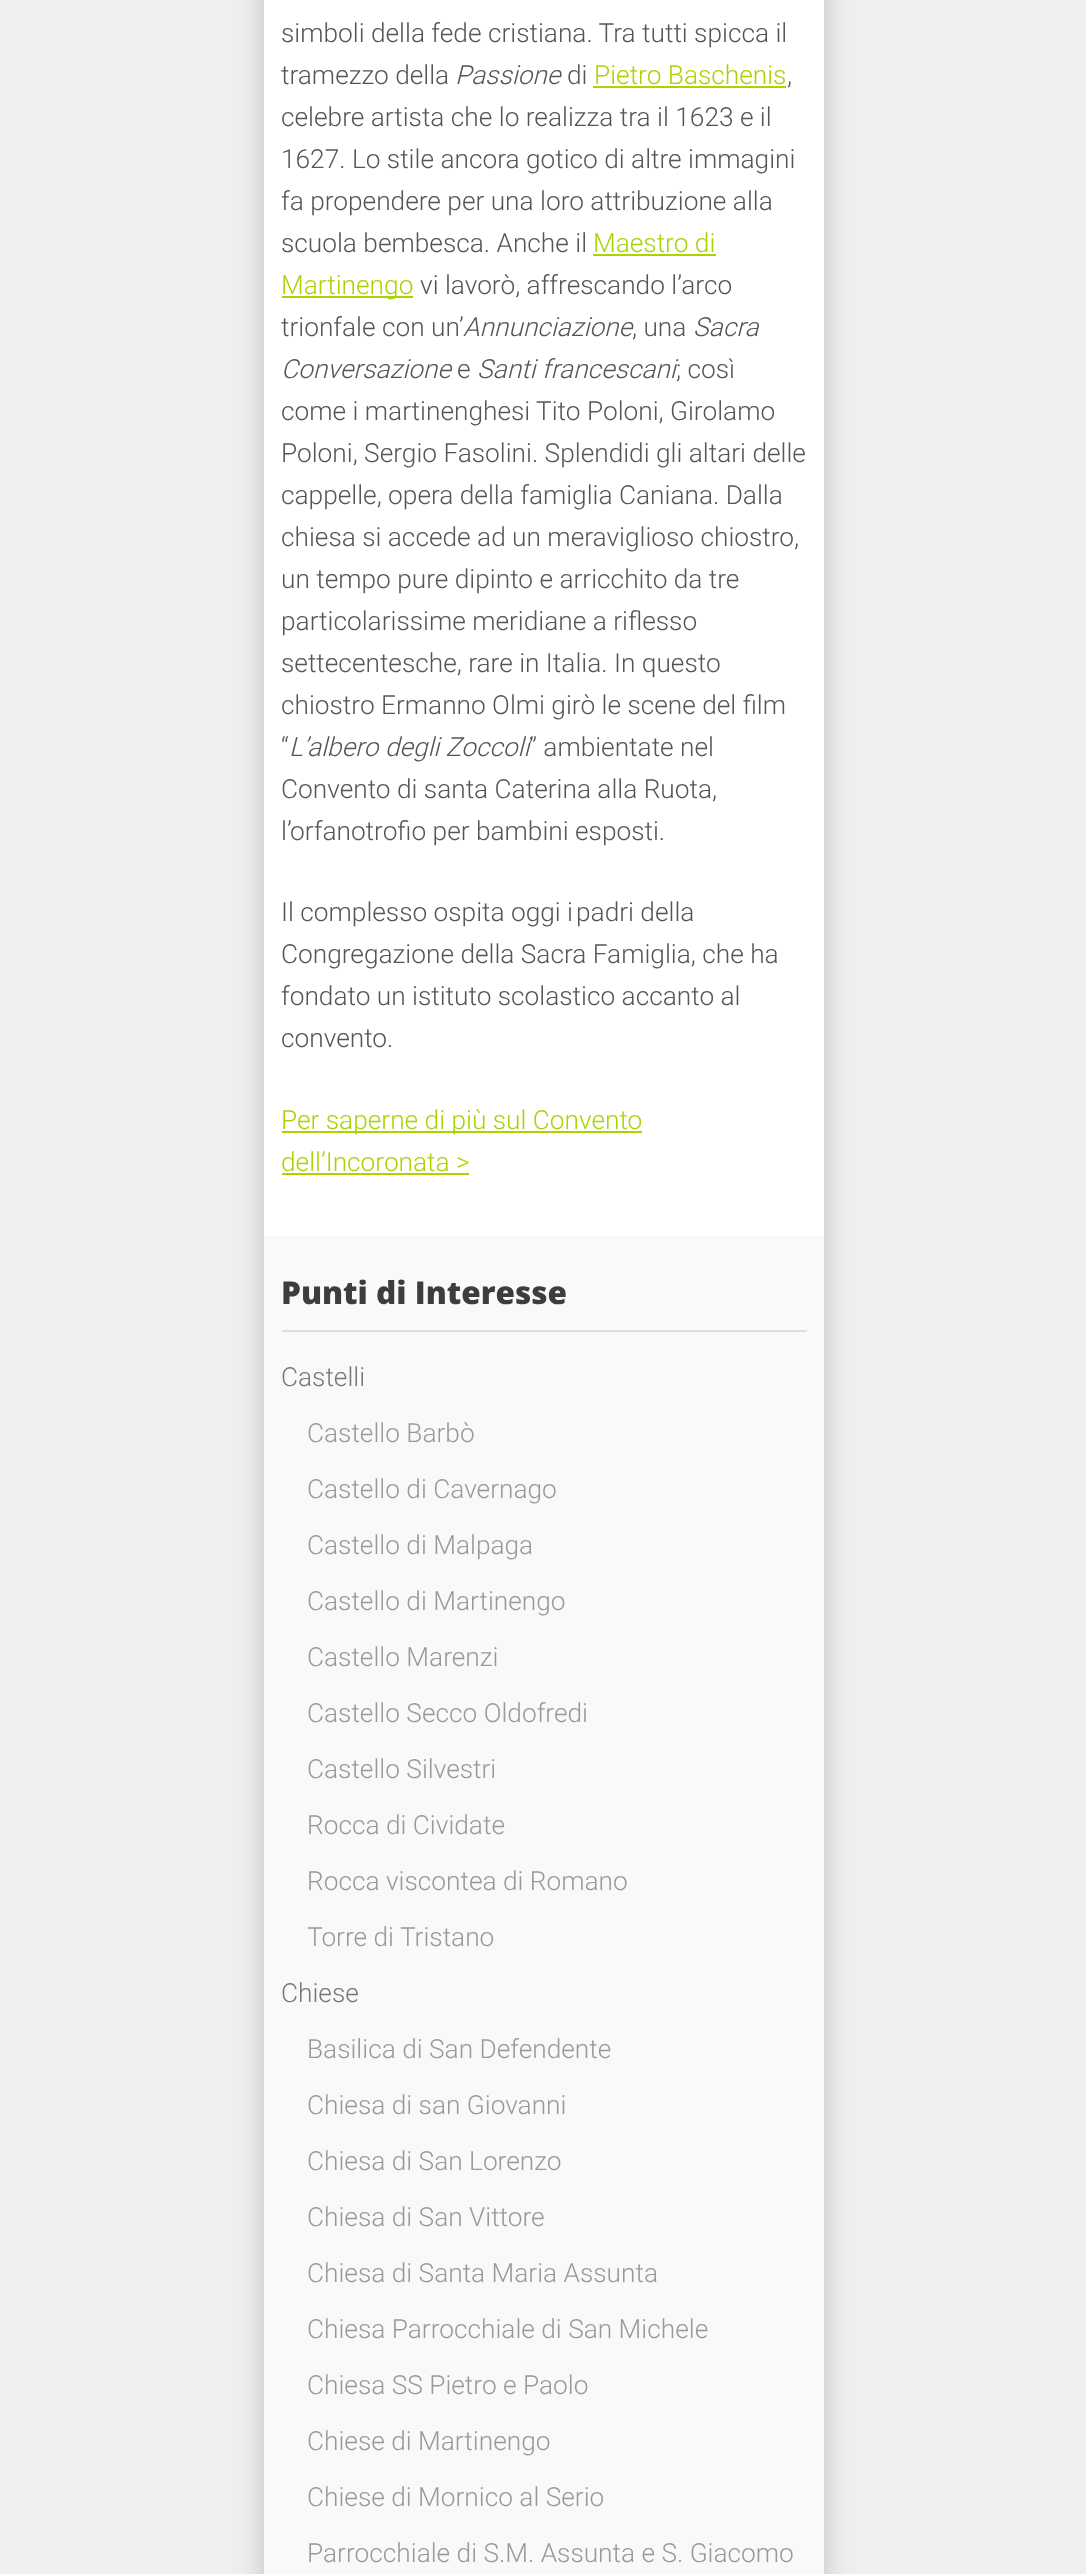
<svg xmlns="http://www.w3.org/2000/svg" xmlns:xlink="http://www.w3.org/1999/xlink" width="1086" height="2574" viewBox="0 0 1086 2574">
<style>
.cls-1{font:300 26.25px Roboto;fill:#555555}
.cls-2{font:italic 300 26.25px Roboto;fill:#555555}
.cls-3{font:300 26.25px Roboto;fill:#aad400}
.cls-4{font:800 31.5px Open Sans;fill:#3d3d3d}
.cls-5{font:300 26.25px Roboto;fill:#777777}
.cls-6{font:300 26.25px Roboto;fill:#999999}
</style>
<rect width="100%" height="100%" fill="#efefef"/>
<rect fill="#000000" fill-opacity="0.2" filter="blur(13px)" x="264" y="-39" width="560" height="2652"/>
<rect fill="#f9f9f9" x="264" y="1236" width="560" height="1338"/>
<rect fill="#ffffff" x="264" y="0" width="560" height="1236"/>
<rect fill="#aad400" x="593" y="86" width="193" height="2"/>
<rect fill="#aad400" x="593" y="254" width="123" height="2"/>
<rect fill="#aad400" x="282" y="296" width="131" height="2"/>
<rect fill="#aad400" x="282" y="1131" width="360" height="2"/>
<rect fill="#aad400" x="282" y="1173" width="187" height="2"/>
<rect fill="#dedede" x="282" y="1330" width="525" height="2"/>
<text class="cls-1"><tspan x="281" y="42">simboli della fede cristiana. Tra tutti spicca il</tspan><tspan x="281" y="84">tramezzo della</tspan></text>
<text class="cls-2" x="455" y="84">Passione</text>
<text class="cls-1" x="567" y="84">di</text>
<text class="cls-3" x="594" y="84">Pietro Baschenis</text>
<text class="cls-1" x="787" y="84">,</text>
<text class="cls-1"><tspan x="281" y="126">celebre artista che lo realizza tra il 1623 e il</tspan><tspan x="281" y="168">1627. Lo stile ancora gotico di altre immagini</tspan><tspan x="281" y="210">fa propendere per una loro attribuzione alla</tspan><tspan x="281" y="252">scuola bembesca. Anche il</tspan></text>
<text class="cls-3" x="593" y="252">Maestro di</text>
<text class="cls-3" x="281" y="294">Martinengo</text>
<text class="cls-1" x="420" y="294">vi lavorò, affrescando l’arco</text>
<text class="cls-1" x="281" y="336">trionfale con un’</text>
<text class="cls-2" x="463" y="336">Annunciazione</text>
<text class="cls-1" x="632" y="336">, una</text>
<text class="cls-2" x="693" y="336">Sacra</text>
<text class="cls-2" x="281" y="378">Conversazione</text>
<text class="cls-1" x="457" y="378">e</text>
<text class="cls-2" x="477" y="378">Santi francescani</text>
<text class="cls-1" x="676" y="378">; così</text>
<text class="cls-1"><tspan x="281" y="420">come i martinenghesi Tito Poloni, Girolamo</tspan><tspan x="281" y="462">Poloni, Sergio Fasolini. Splendidi gli altari delle</tspan><tspan x="281" y="504">cappelle, opera della famiglia Caniana. Dalla</tspan><tspan x="281" y="546">chiesa si accede ad un meraviglioso chiostro,</tspan><tspan x="281" y="588">un tempo pure dipinto e arricchito da tre</tspan><tspan x="281" y="630">particolarissime meridiane a riflesso</tspan><tspan x="281" y="672">settecentesche, rare in Italia. In questo</tspan><tspan x="281" y="714">chiostro Ermanno Olmi girò le scene del film</tspan><tspan x="281" y="756">“</tspan></text>
<text class="cls-2" x="289" y="756">L’albero degli Zoccoli</text>
<text class="cls-1" x="529" y="756">” ambientate nel</text>
<text class="cls-1"><tspan x="281" y="798">Convento di santa Caterina alla Ruota,</tspan><tspan x="281" y="840">l’orfanotrofio per bambini esposti.</tspan></text>
<text class="cls-1" x="281" y="921">Il complesso ospita oggi i</text>
<text class="cls-1" x="576" y="921">padri della</text>
<text class="cls-1"><tspan x="281" y="963">Congregazione della Sacra Famiglia, che ha</tspan><tspan x="281" y="1005">fondato un istituto scolastico accanto al</tspan><tspan x="281" y="1047">convento.</tspan></text>
<text class="cls-3"><tspan x="281" y="1129">Per saperne di più sul Convento</tspan><tspan x="281" y="1171">dell’Incoronata &gt;</tspan></text>
<text class="cls-4" x="281" y="1304">Punti di Interesse</text>
<text class="cls-5" x="281" y="1386">Castelli</text>
<text class="cls-6" x="307" y="1442">Castello Barbò</text>
<text class="cls-6" x="307" y="1498">Castello di Cavernago</text>
<text class="cls-6" x="307" y="1554">Castello di Malpaga</text>
<text class="cls-6" x="307" y="1610">Castello di Martinengo</text>
<text class="cls-6" x="307" y="1666">Castello Marenzi</text>
<text class="cls-6" x="307" y="1722">Castello Secco Oldofredi</text>
<text class="cls-6" x="307" y="1778">Castello Silvestri</text>
<text class="cls-6" x="307" y="1834">Rocca di Cividate</text>
<text class="cls-6" x="307" y="1890">Rocca viscontea di Romano</text>
<text class="cls-6" x="307" y="1946">Torre di Tristano</text>
<text class="cls-5" x="281" y="2002">Chiese</text>
<text class="cls-6" x="307" y="2058">Basilica di San Defendente</text>
<text class="cls-6" x="307" y="2114">Chiesa di san Giovanni</text>
<text class="cls-6" x="307" y="2170">Chiesa di San Lorenzo</text>
<text class="cls-6" x="307" y="2226">Chiesa di San Vittore</text>
<text class="cls-6" x="307" y="2282">Chiesa di Santa Maria Assunta</text>
<text class="cls-6" x="307" y="2338">Chiesa Parrocchiale di San Michele</text>
<text class="cls-6" x="307" y="2394">Chiesa SS Pietro e Paolo</text>
<text class="cls-6" x="307" y="2450">Chiese di Martinengo</text>
<text class="cls-6" x="307" y="2506">Chiese di Mornico al Serio</text>
<text class="cls-6" x="307" y="2562">Parrocchiale di S.M. Assunta e S. Giacomo</text>
</svg>
